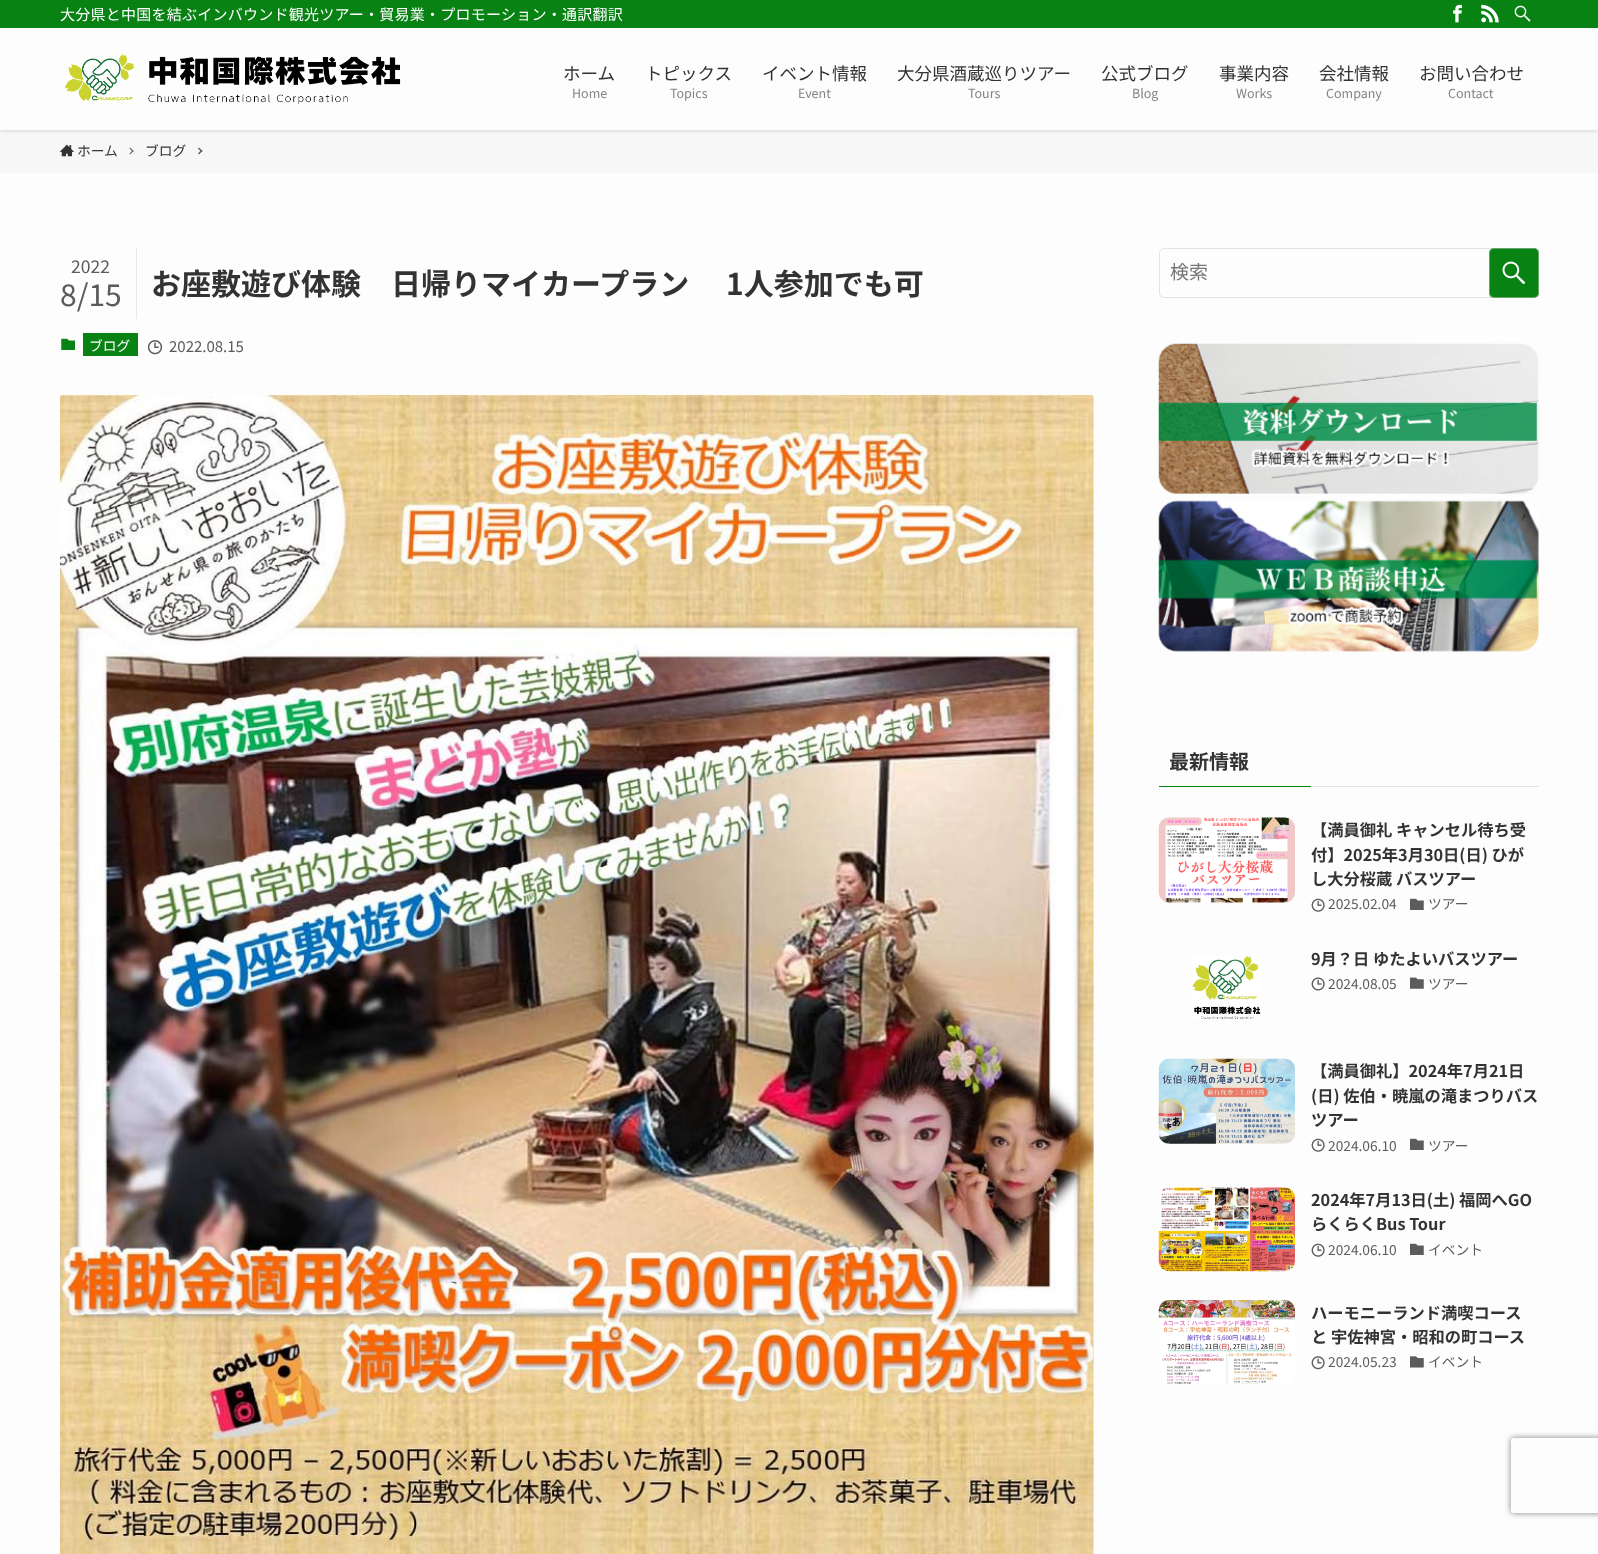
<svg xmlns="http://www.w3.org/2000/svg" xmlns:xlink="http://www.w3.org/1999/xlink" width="1598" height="1554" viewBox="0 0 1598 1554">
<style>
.cls-1{font:15px Noto Sans JP;letter-spacing:0.25px;fill:#ffffff}
.cls-2{font:17.5px Noto Sans JP;fill:#333333}
.cls-3{font:12.5px Noto Sans JP;fill:#848484}
.cls-4{font:13.75px Noto Sans JP;fill:#333333}
.cls-5{font:17.5px Noto Sans JP;fill:#5b5b5b}
.cls-6{font:30px Noto Sans JP;fill:#5b5b5b}
.cls-7{font:bold 30px Noto Sans JP;fill:#333333}
.cls-8{font:13.75px Noto Sans JP;fill:#ffffff}
.cls-9{font:15px Noto Sans JP;fill:#5b5b5b}
.cls-10{font:19px Noto Sans JP;fill:#757575}
.cls-11{font:bold 20px Noto Sans JP;fill:#333333}
.cls-12{font:bold 16.25px Noto Sans JP;fill:#333333}
.cls-13{font:13.75px Noto Sans JP;fill:#5b5b5b}
</style>
<defs>
<clipPath id="clip1"><rect x="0" y="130" width="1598" height="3"/></clipPath>
<clipPath id="clip2"><path d="M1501 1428H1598V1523H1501ZM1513.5 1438H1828.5C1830 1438 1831 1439 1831 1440.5V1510.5C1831 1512 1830 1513 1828.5 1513H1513.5C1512 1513 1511 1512 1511 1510.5V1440.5C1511 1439 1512 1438 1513.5 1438Z" clip-rule="evenodd"/></clipPath>
</defs>
<rect width="100%" height="100%" fill="#fdfdfd"/>
<rect fill="#f7f7f7" x="0" y="130" width="1598" height="43"/>
<g clip-path="url(#clip1)">
<rect fill="#000000" fill-opacity="0.12" filter="blur(2.5px)" x="0" y="1" width="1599" height="130"/>
</g>
<rect fill="#078213" x="0" y="0" width="1598" height="28"/>
<image xlink:href="image0.png" x="1453" y="4" width="9" height="19"/>
<image xlink:href="image1.png" x="1481" y="4" width="18" height="19"/>
<image xlink:href="image2.png" x="1514" y="5" width="17" height="17"/>
<image xlink:href="image3.png" x="65" y="54" width="336" height="51"/>
<image xlink:href="image4.png" x="60" y="144" width="14" height="13"/>
<path fill="#5a5a5a" d="M130 147.5L133.5 151L133 152L129.5 148.5Z"/>
<path fill="#5a5a5a" d="M133 150L133.5 151L130 154.5L129.5 153.5Z"/>
<path fill="#5a5a5a" d="M199 147.5L202.5 151L201.5 152L198 148.5Z"/>
<path fill="#5a5a5a" d="M201.5 150L202.5 151L199 154.5L198 153.5Z"/>
<rect fill="#e8e8e8" x="136" y="248" width="1" height="71"/>
<image xlink:href="image5.png" x="61" y="338" width="14" height="12"/>
<rect fill="#078213" x="83" y="333" width="55" height="23"/>
<image xlink:href="image6.png" x="147" y="340" width="16" height="15"/>
<image xlink:href="image7.png" x="60" y="395" width="1034" height="1159"/>
<rect fill="none" stroke="#e3e3e3" x="1159.5" y="248.5" width="379" height="49" rx="4.5"/>
<rect fill="#078213" x="1489" y="248" width="50" height="50" rx="5"/>
<rect fill="none" stroke="#c8c8c8" stroke-opacity="0.5" x="1489.5" y="248.5" width="49" height="49" rx="4.5"/>
<image xlink:href="image8.png" x="1502" y="261" width="23" height="23"/>
<image xlink:href="image9.png" x="1158" y="343" width="381" height="151"/>
<image xlink:href="image10.png" x="1158" y="500" width="381" height="152"/>
<rect fill="#078213" x="1159" y="786" width="152" height="1"/>
<rect fill="#e3e3e3" x="1311" y="786" width="228" height="1"/>
<image xlink:href="image11.png" x="1158" y="817" width="137" height="86"/>
<image xlink:href="image12.png" x="1311" y="898" width="14" height="14"/>
<image xlink:href="image13.png" x="1410" y="898" width="14" height="12"/>
<image xlink:href="image14.png" x="1192" y="956" width="69" height="63"/>
<image xlink:href="image15.png" x="1311" y="977" width="14" height="14"/>
<image xlink:href="image16.png" x="1410" y="977" width="14" height="12"/>
<image xlink:href="image17.png" x="1158" y="1058" width="137" height="86"/>
<image xlink:href="image12.png" x="1311" y="1138" width="14" height="14"/>
<image xlink:href="image13.png" x="1410" y="1138" width="14" height="12"/>
<image xlink:href="image18.png" x="1158" y="1187" width="137" height="85"/>
<image xlink:href="image12.png" x="1311" y="1243" width="14" height="14"/>
<image xlink:href="image13.png" x="1410" y="1243" width="14" height="12"/>
<image xlink:href="image19.png" x="1158" y="1300" width="137" height="84"/>
<image xlink:href="image20.png" x="1311" y="1356" width="14" height="14"/>
<image xlink:href="image21.png" x="1410" y="1356" width="14" height="12"/>
<g clip-path="url(#clip2)">
<rect fill="#808080" filter="blur(3px)" x="1511" y="1438" width="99" height="75" rx="2.5"/>
</g>
<text class="cls-1" x="60" y="20">大分県と中国を結ぶインバウンド観光ツアー・貿易業・プロモーション・通訳翻訳</text>
<text class="cls-2" x="563" y="80">ホーム</text>
<text class="cls-3" x="572" y="98">Home</text>
<text class="cls-2" x="645" y="80">トピックス</text>
<text class="cls-3" x="670" y="98">Topics</text>
<text class="cls-2" x="762" y="80">イベント情報</text>
<text class="cls-3" x="798" y="98">Event</text>
<text class="cls-2" x="897" y="80">大分県酒蔵巡りツアー</text>
<text class="cls-3" x="968" y="98">Tours</text>
<text class="cls-2" x="1101" y="80">公式ブログ</text>
<text class="cls-3" x="1132" y="98">Blog</text>
<text class="cls-2" x="1219" y="80">事業内容</text>
<text class="cls-3" x="1236" y="98">Works</text>
<text class="cls-2" x="1319" y="80">会社情報</text>
<text class="cls-3" x="1326" y="98">Company</text>
<text class="cls-2" x="1419" y="80">お問い合わせ</text>
<text class="cls-3" x="1448" y="98">Contact</text>
<text class="cls-4" x="77" y="156">ホーム</text>
<text class="cls-4" x="145" y="156">ブログ</text>
<text class="cls-5" x="71" y="273">2022</text>
<text class="cls-6" x="60" y="306">8/15</text>
<text class="cls-7" x="151" y="295">お座敷遊び体験　日帰りマイカープラン 　1人参加でも可</text>
<text class="cls-8" x="89" y="351">ブログ</text>
<text class="cls-9" x="169" y="352">2022.08.15</text>
<text class="cls-10" x="1170" y="279">検索</text>
<text class="cls-11" x="1169" y="769">最新情報</text>
<text class="cls-12"><tspan x="1311" y="836">【満員御礼 キャンセル待ち受</tspan><tspan x="1311" y="861">付】2025年3月30日(日) ひが</tspan><tspan x="1311" y="885">し大分桜蔵 バスツアー</tspan></text>
<text class="cls-13" x="1328" y="909">2025.02.04</text>
<text class="cls-13" x="1428" y="909">ツアー</text>
<text class="cls-12" x="1311" y="965">9月？日 ゆたよいバスツアー</text>
<text class="cls-13" x="1328" y="989">2024.08.05</text>
<text class="cls-13" x="1428" y="989">ツアー</text>
<text class="cls-12"><tspan x="1311" y="1077">【満員御礼】2024年7月21日</tspan><tspan x="1311" y="1102">(日) 佐伯・暁嵐の滝まつりバス</tspan><tspan x="1311" y="1126">ツアー</tspan></text>
<text class="cls-13" x="1328" y="1151">2024.06.10</text>
<text class="cls-13" x="1428" y="1151">ツアー</text>
<text class="cls-12"><tspan x="1311" y="1206">2024年7月13日(土) 福岡へGO</tspan><tspan x="1311" y="1230">らくらくBus Tour</tspan></text>
<text class="cls-13" x="1328" y="1255">2024.06.10</text>
<text class="cls-13" x="1428" y="1255">イベント</text>
<text class="cls-12"><tspan x="1311" y="1319">ハーモニーランド満喫コース</tspan><tspan x="1311" y="1343">と 宇佐神宮・昭和の町コース</tspan></text>
<text class="cls-13" x="1328" y="1367">2024.05.23</text>
<text class="cls-13" x="1428" y="1367">イベント</text>
</svg>
